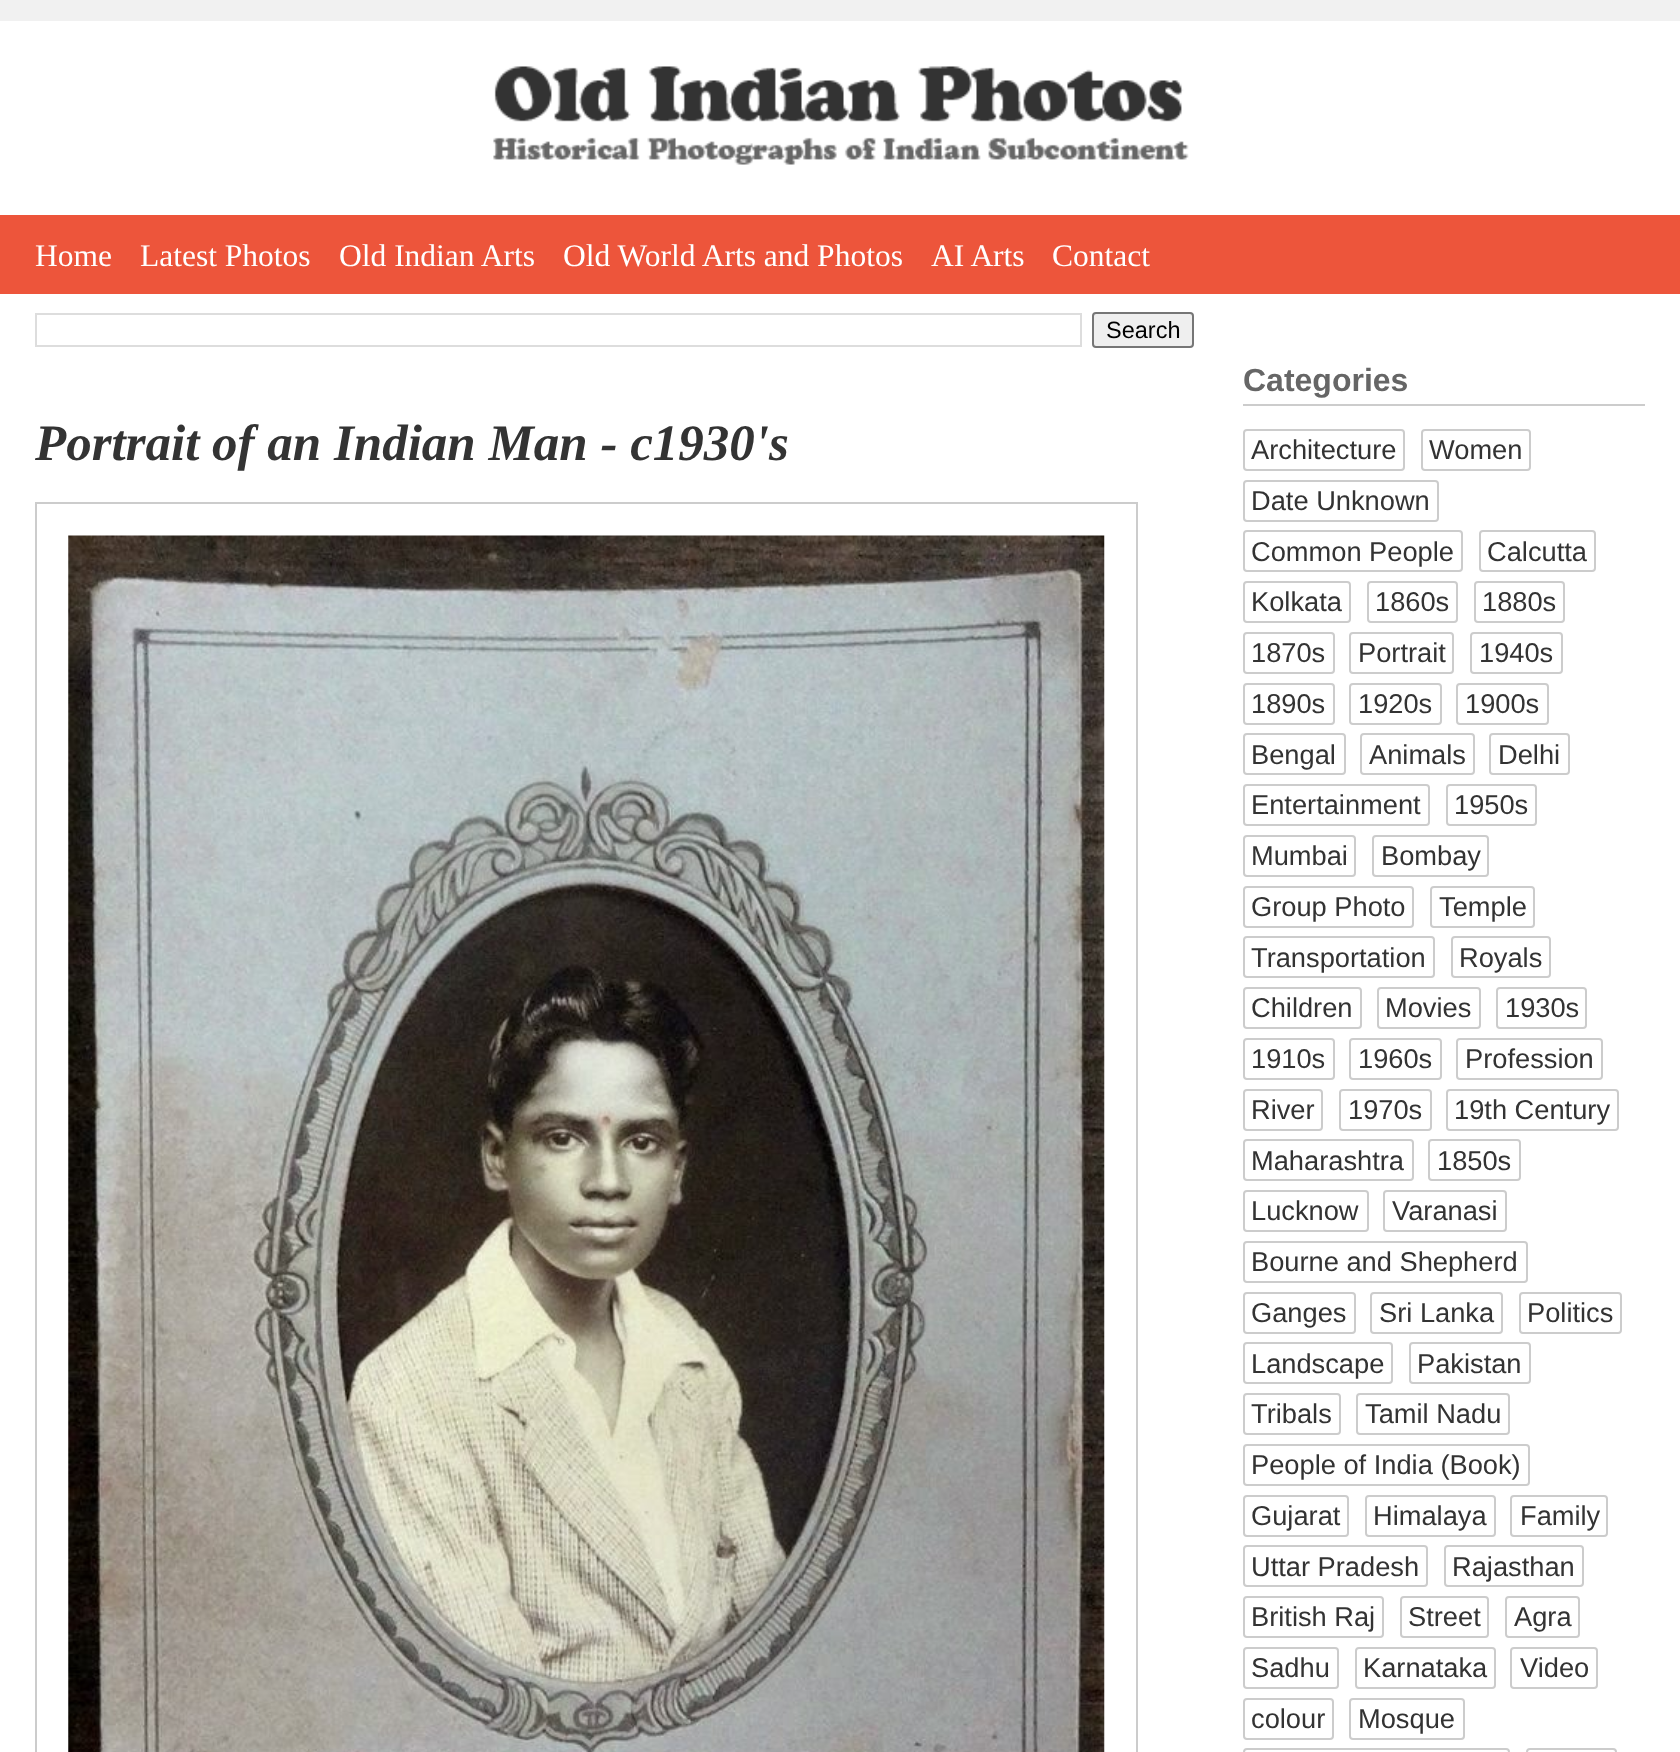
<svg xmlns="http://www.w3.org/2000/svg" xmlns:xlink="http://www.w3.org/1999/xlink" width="1680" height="1752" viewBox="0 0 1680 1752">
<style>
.cls-1{font:31.5px Liberation Serif;fill:#ffffff}
.cls-2{font:23.5px Liberation Sans;fill:#000000}
.cls-3{font:italic bold 51px Liberation Serif;fill:#333333}
.cls-4{font:bold 32px Liberation Sans;fill:#666666}
.cls-5{font:27.25px Liberation Sans;fill:#333333}
</style>
<rect width="100%" height="100%" fill="#f1f1f1"/>
<rect fill="#ffffff" x="0" y="21" width="1680" height="194"/>
<image xlink:href="image0.png" x="493" y="66" width="696" height="99"/>
<rect fill="#ed553b" x="0" y="215" width="1680" height="79"/>
<rect fill="#ffffff" x="0" y="294" width="1680" height="1458"/>
<rect fill="none" stroke="#dddddd" stroke-width="2" x="36" y="314" width="1045" height="32"/>
<rect fill="#efefef" stroke="#767676" stroke-width="2" x="1093" y="313" width="100" height="34" rx="3"/>
<rect fill="none" stroke="#cccccc" stroke-width="2" x="36" y="503" width="1101" height="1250"/>
<image xlink:href="image1.png" x="68" y="535" width="1037" height="1217"/>
<rect fill="#cccccc" x="1243" y="404" width="402" height="2"/>
<rect fill="none" stroke="#cccccc" stroke-width="2" x="1244" y="430" width="160" height="40" rx="3"/>
<rect fill="none" stroke="#cccccc" stroke-width="2" x="1422" y="430" width="108" height="40" rx="3"/>
<rect fill="none" stroke="#cccccc" stroke-width="2" x="1244" y="481" width="194" height="40" rx="3"/>
<rect fill="none" stroke="#cccccc" stroke-width="2" x="1244" y="531" width="218" height="40" rx="3"/>
<rect fill="none" stroke="#cccccc" stroke-width="2" x="1480" y="531" width="115" height="40" rx="3"/>
<rect fill="none" stroke="#cccccc" stroke-width="2" x="1244" y="582" width="106" height="40" rx="3"/>
<rect fill="none" stroke="#cccccc" stroke-width="2" x="1368" y="582" width="89" height="40" rx="3"/>
<rect fill="none" stroke="#cccccc" stroke-width="2" x="1475" y="582" width="89" height="40" rx="3"/>
<rect fill="none" stroke="#cccccc" stroke-width="2" x="1244" y="633" width="90" height="40" rx="3"/>
<rect fill="none" stroke="#cccccc" stroke-width="2" x="1350" y="633" width="103" height="40" rx="3"/>
<rect fill="none" stroke="#cccccc" stroke-width="2" x="1471" y="633" width="91" height="40" rx="3"/>
<rect fill="none" stroke="#cccccc" stroke-width="2" x="1244" y="684" width="90" height="40" rx="3"/>
<rect fill="none" stroke="#cccccc" stroke-width="2" x="1350" y="684" width="91" height="40" rx="3"/>
<rect fill="none" stroke="#cccccc" stroke-width="2" x="1457" y="684" width="91" height="40" rx="3"/>
<rect fill="none" stroke="#cccccc" stroke-width="2" x="1244" y="734" width="101" height="40" rx="3"/>
<rect fill="none" stroke="#cccccc" stroke-width="2" x="1361" y="734" width="113" height="40" rx="3"/>
<rect fill="none" stroke="#cccccc" stroke-width="2" x="1490" y="734" width="79" height="40" rx="3"/>
<rect fill="none" stroke="#cccccc" stroke-width="2" x="1244" y="785" width="185" height="40" rx="3"/>
<rect fill="none" stroke="#cccccc" stroke-width="2" x="1447" y="785" width="89" height="40" rx="3"/>
<rect fill="none" stroke="#cccccc" stroke-width="2" x="1244" y="836" width="111" height="40" rx="3"/>
<rect fill="none" stroke="#cccccc" stroke-width="2" x="1373" y="836" width="115" height="40" rx="3"/>
<rect fill="none" stroke="#cccccc" stroke-width="2" x="1244" y="887" width="169" height="40" rx="3"/>
<rect fill="none" stroke="#cccccc" stroke-width="2" x="1431" y="887" width="103" height="40" rx="3"/>
<rect fill="none" stroke="#cccccc" stroke-width="2" x="1244" y="937" width="190" height="40" rx="3"/>
<rect fill="none" stroke="#cccccc" stroke-width="2" x="1452" y="937" width="98" height="40" rx="3"/>
<rect fill="none" stroke="#cccccc" stroke-width="2" x="1244" y="988" width="117" height="40" rx="3"/>
<rect fill="none" stroke="#cccccc" stroke-width="2" x="1378" y="988" width="102" height="40" rx="3"/>
<rect fill="none" stroke="#cccccc" stroke-width="2" x="1497" y="988" width="89" height="40" rx="3"/>
<rect fill="none" stroke="#cccccc" stroke-width="2" x="1244" y="1039" width="90" height="40" rx="3"/>
<rect fill="none" stroke="#cccccc" stroke-width="2" x="1350" y="1039" width="91" height="40" rx="3"/>
<rect fill="none" stroke="#cccccc" stroke-width="2" x="1457" y="1039" width="145" height="40" rx="3"/>
<rect fill="none" stroke="#cccccc" stroke-width="2" x="1244" y="1090" width="78" height="40" rx="3"/>
<rect fill="none" stroke="#cccccc" stroke-width="2" x="1340" y="1090" width="91" height="40" rx="3"/>
<rect fill="none" stroke="#cccccc" stroke-width="2" x="1447" y="1090" width="171" height="40" rx="3"/>
<rect fill="none" stroke="#cccccc" stroke-width="2" x="1244" y="1140" width="169" height="40" rx="3"/>
<rect fill="none" stroke="#cccccc" stroke-width="2" x="1429" y="1140" width="91" height="40" rx="3"/>
<rect fill="none" stroke="#cccccc" stroke-width="2" x="1244" y="1191" width="124" height="40" rx="3"/>
<rect fill="none" stroke="#cccccc" stroke-width="2" x="1384" y="1191" width="122" height="40" rx="3"/>
<rect fill="none" stroke="#cccccc" stroke-width="2" x="1244" y="1242" width="283" height="40" rx="3"/>
<rect fill="none" stroke="#cccccc" stroke-width="2" x="1244" y="1293" width="111" height="40" rx="3"/>
<rect fill="none" stroke="#cccccc" stroke-width="2" x="1371" y="1293" width="131" height="40" rx="3"/>
<rect fill="none" stroke="#cccccc" stroke-width="2" x="1520" y="1293" width="101" height="40" rx="3"/>
<rect fill="none" stroke="#cccccc" stroke-width="2" x="1244" y="1343" width="148" height="40" rx="3"/>
<rect fill="none" stroke="#cccccc" stroke-width="2" x="1410" y="1343" width="120" height="40" rx="3"/>
<rect fill="none" stroke="#cccccc" stroke-width="2" x="1244" y="1394" width="96" height="40" rx="3"/>
<rect fill="none" stroke="#cccccc" stroke-width="2" x="1357" y="1394" width="152" height="40" rx="3"/>
<rect fill="none" stroke="#cccccc" stroke-width="2" x="1244" y="1445" width="285" height="40" rx="3"/>
<rect fill="none" stroke="#cccccc" stroke-width="2" x="1244" y="1496" width="104" height="40" rx="3"/>
<rect fill="none" stroke="#cccccc" stroke-width="2" x="1366" y="1496" width="129" height="40" rx="3"/>
<rect fill="none" stroke="#cccccc" stroke-width="2" x="1511" y="1496" width="96" height="40" rx="3"/>
<rect fill="none" stroke="#cccccc" stroke-width="2" x="1244" y="1546" width="183" height="40" rx="3"/>
<rect fill="none" stroke="#cccccc" stroke-width="2" x="1445" y="1546" width="138" height="40" rx="3"/>
<rect fill="none" stroke="#cccccc" stroke-width="2" x="1244" y="1597" width="139" height="40" rx="3"/>
<rect fill="none" stroke="#cccccc" stroke-width="2" x="1401" y="1597" width="87" height="40" rx="3"/>
<rect fill="none" stroke="#cccccc" stroke-width="2" x="1506" y="1597" width="73" height="40" rx="3"/>
<rect fill="none" stroke="#cccccc" stroke-width="2" x="1244" y="1648" width="94" height="40" rx="3"/>
<rect fill="none" stroke="#cccccc" stroke-width="2" x="1356" y="1648" width="139" height="40" rx="3"/>
<rect fill="none" stroke="#cccccc" stroke-width="2" x="1511" y="1648" width="86" height="40" rx="3"/>
<rect fill="none" stroke="#cccccc" stroke-width="2" x="1244" y="1699" width="89" height="40" rx="3"/>
<rect fill="none" stroke="#cccccc" stroke-width="2" x="1350" y="1699" width="114" height="40" rx="3"/>
<rect fill="none" stroke="#cccccc" stroke-width="2" x="1244" y="1749" width="265" height="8" rx="3"/>
<rect fill="none" stroke="#cccccc" stroke-width="2" x="1527" y="1749" width="89" height="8" rx="3"/>
<text class="cls-1" x="35" y="266">Home</text>
<text class="cls-1" x="140" y="266">Latest Photos</text>
<text class="cls-1" x="339" y="266">Old Indian Arts</text>
<text class="cls-1" x="563" y="266">Old World Arts and Photos</text>
<text class="cls-1" x="931" y="266">AI Arts</text>
<text class="cls-1" x="1052" y="266">Contact</text>
<text class="cls-2" x="1106" y="338">Search</text>
<text class="cls-3" x="35" y="460">Portrait of an Indian Man - c1930's</text>
<text class="cls-4" x="1243" y="391">Categories</text>
<text class="cls-5" x="1251" y="459">Architecture</text>
<text class="cls-5" x="1429" y="459">Women</text>
<text class="cls-5"><tspan x="1251" y="510">Date Unknown</tspan><tspan x="1251" y="561">Common People</tspan></text>
<text class="cls-5" x="1487" y="561">Calcutta</text>
<text class="cls-5" x="1251" y="611">Kolkata</text>
<text class="cls-5" x="1375" y="611">1860s</text>
<text class="cls-5" x="1482" y="611">1880s</text>
<text class="cls-5" x="1251" y="662">1870s</text>
<text class="cls-5" x="1358" y="662">Portrait</text>
<text class="cls-5" x="1479" y="662">1940s</text>
<text class="cls-5" x="1251" y="713">1890s</text>
<text class="cls-5" x="1358" y="713">1920s</text>
<text class="cls-5" x="1465" y="713">1900s</text>
<text class="cls-5" x="1251" y="764">Bengal</text>
<text class="cls-5" x="1369" y="764">Animals</text>
<text class="cls-5" x="1498" y="764">Delhi</text>
<text class="cls-5" x="1251" y="814">Entertainment</text>
<text class="cls-5" x="1454" y="814">1950s</text>
<text class="cls-5" x="1251" y="865">Mumbai</text>
<text class="cls-5" x="1381" y="865">Bombay</text>
<text class="cls-5" x="1251" y="916">Group Photo</text>
<text class="cls-5" x="1439" y="916">Temple</text>
<text class="cls-5" x="1251" y="967">Transportation</text>
<text class="cls-5" x="1459" y="967">Royals</text>
<text class="cls-5" x="1251" y="1017">Children</text>
<text class="cls-5" x="1385" y="1017">Movies</text>
<text class="cls-5" x="1505" y="1017">1930s</text>
<text class="cls-5" x="1251" y="1068">1910s</text>
<text class="cls-5" x="1358" y="1068">1960s</text>
<text class="cls-5" x="1465" y="1068">Profession</text>
<text class="cls-5" x="1251" y="1119">River</text>
<text class="cls-5" x="1348" y="1119">1970s</text>
<text class="cls-5" x="1454" y="1119">19th Century</text>
<text class="cls-5" x="1251" y="1170">Maharashtra</text>
<text class="cls-5" x="1437" y="1170">1850s</text>
<text class="cls-5" x="1251" y="1220">Lucknow</text>
<text class="cls-5" x="1392" y="1220">Varanasi</text>
<text class="cls-5"><tspan x="1251" y="1271">Bourne and Shepherd</tspan><tspan x="1251" y="1322">Ganges</tspan></text>
<text class="cls-5" x="1379" y="1322">Sri Lanka</text>
<text class="cls-5" x="1527" y="1322">Politics</text>
<text class="cls-5" x="1251" y="1373">Landscape</text>
<text class="cls-5" x="1417" y="1373">Pakistan</text>
<text class="cls-5" x="1251" y="1423">Tribals</text>
<text class="cls-5" x="1365" y="1423">Tamil Nadu</text>
<text class="cls-5"><tspan x="1251" y="1474">People of India (Book)</tspan><tspan x="1251" y="1525">Gujarat</tspan></text>
<text class="cls-5" x="1373" y="1525">Himalaya</text>
<text class="cls-5" x="1520" y="1525">Family</text>
<text class="cls-5" x="1251" y="1576">Uttar Pradesh</text>
<text class="cls-5" x="1452" y="1576">Rajasthan</text>
<text class="cls-5" x="1251" y="1626">British Raj</text>
<text class="cls-5" x="1408" y="1626">Street</text>
<text class="cls-5" x="1514" y="1626">Agra</text>
<text class="cls-5" x="1251" y="1677">Sadhu</text>
<text class="cls-5" x="1363" y="1677">Karnataka</text>
<text class="cls-5" x="1520" y="1677">Video</text>
<text class="cls-5" x="1251" y="1728">colour</text>
<text class="cls-5" x="1358" y="1728">Mosque</text>
</svg>
